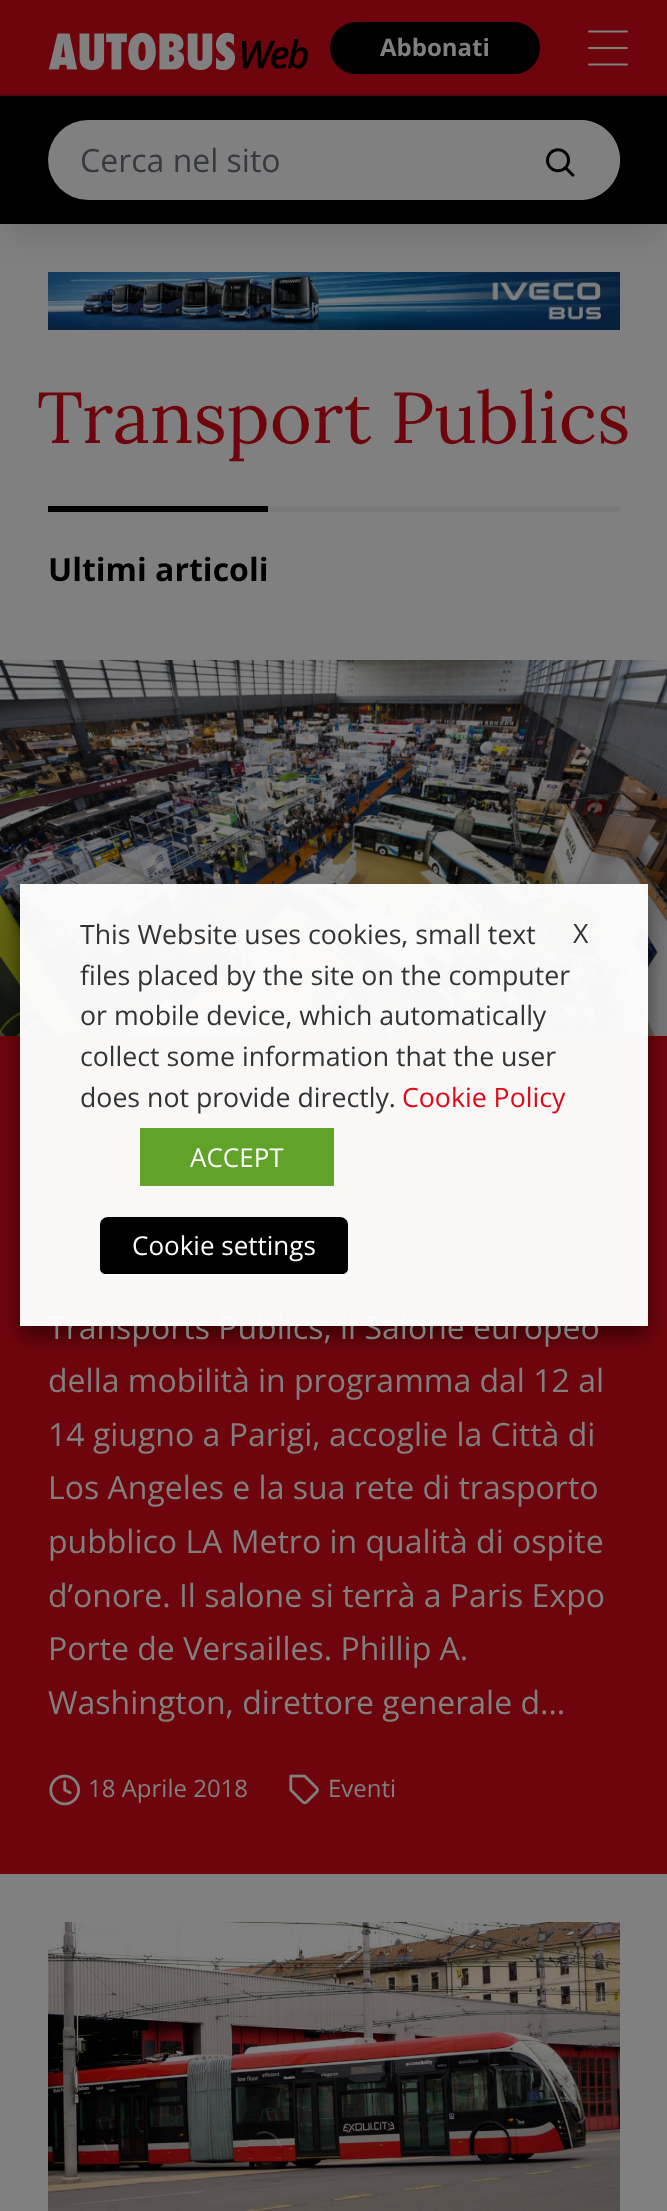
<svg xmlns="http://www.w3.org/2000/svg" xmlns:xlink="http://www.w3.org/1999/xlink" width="667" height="2211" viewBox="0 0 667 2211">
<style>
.cls-1{font:bold 24px Open Sans;fill:#808080}
.cls-2{font:32px Open Sans;fill:#363940}
.cls-3{font:72px Lora;fill:#6f050c}
.cls-4{font:bold 32px Open Sans;fill:#000000}
.cls-5{font:32px Open Sans;fill:#808080}
.cls-6{font:24px Open Sans;fill:#808080}
.cls-7{font:26.7px Open Sans;fill:#333333}
.cls-8{font:26.7px Open Sans;fill:#dd0918}
.cls-9{font:26px Open Sans;fill:#ffffff}
</style>
<defs>
<clipPath id="clip1"><path d="M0 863H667V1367H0ZM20 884H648V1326H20Z" clip-rule="evenodd"/></clipPath>
</defs>
<rect width="100%" height="100%" fill="#808080"/>
<rect fill="#000000" fill-opacity="0.1" filter="blur(15px)" x="6" y="122" width="656" height="116"/>
<rect fill="#6f050c" x="0" y="0" width="667" height="94"/>
<rect fill="#59040a" x="0" y="94" width="667" height="2"/>
<image xlink:href="image0.png" x="48" y="32" width="260" height="38"/>
<rect fill="#000000" stroke="#000000" stroke-width="2" x="331" y="23" width="208" height="50" rx="25"/>
<path fill="none" stroke="#808080" stroke-width="1.9" stroke-linecap="round" d="M589 31.5H627M589 48H627M589 64.5H627"/>
<rect fill="#000000" x="0" y="96" width="667" height="128"/>
<rect fill="#808080" x="48" y="120" width="572" height="80" rx="40"/>
<path fill="#808080" d="M524 120H580C602 120 620 138 620 160C620 182 602 200 580 200H524Z"/>
<image xlink:href="image1.png" x="546" y="148" width="29" height="29"/>
<image xlink:href="image2.png" x="48" y="272" width="572" height="58"/>
<rect fill="#7a7a7b" x="268" y="506" width="352" height="6"/>
<rect fill="#000000" x="48" y="506" width="220" height="6"/>
<image xlink:href="image3.png" x="0" y="660" width="667" height="376"/>
<rect fill="#6f050c" x="0" y="1036" width="667" height="838"/>
<image xlink:href="image4.png" x="49" y="1774" width="31" height="32"/>
<image xlink:href="image5.png" x="289" y="1774" width="30" height="31"/>
<image xlink:href="image6.png" x="48" y="1922" width="572" height="289"/>
<g clip-path="url(#clip1)">
<rect fill="#000000" fill-opacity="0.5" filter="blur(10px)" x="20" y="894" width="628" height="442"/>
</g>
<text class="cls-1" x="380" y="56">Abbonati</text>
<text class="cls-2" x="80" y="172">Cerca nel sito</text>
<text class="cls-3" x="37" y="443">Transport Publics</text>
<text class="cls-4" x="48" y="581">Ultimi articoli</text>
<text class="cls-5"><tspan x="48" y="1339">Transports Publics, il Salone europeo</tspan><tspan x="48" y="1392">della mobilità in programma dal 12 al</tspan><tspan x="48" y="1446">14 giugno a Parigi, accoglie la Città di</tspan><tspan x="48" y="1499">Los Angeles e la sua rete di trasporto</tspan><tspan x="48" y="1553">pubblico LA Metro in qualità di ospite</tspan><tspan x="48" y="1607">d’onore. Il salone si terrà a Paris Expo</tspan><tspan x="48" y="1660">Porte de Versailles. Phillip A.</tspan><tspan x="48" y="1714">Washington, direttore generale d...</tspan></text>
<text class="cls-6" x="88" y="1797">18 Aprile 2018</text>
<text class="cls-6" x="328" y="1797">Eventi</text>
<rect fill="#ffffff" fill-opacity="0.97" x="20" y="884" width="628" height="442"/>
<text class="cls-7"><tspan x="80" y="944">This Website uses cookies, small text</tspan><tspan x="80" y="985">files placed by the site on the computer</tspan><tspan x="80" y="1025">or mobile device, which automatically</tspan><tspan x="80" y="1066">collect some information that the user</tspan><tspan x="80" y="1107">does not provide directly.</tspan></text>
<text class="cls-8" x="402" y="1107">Cookie Policy</text>
<rect fill="#61a229" x="140" y="1128" width="194" height="58"/>
<text class="cls-9" x="190" y="1167">ACCEPT</text>
<path fill="#000000" d="M108 1217H340C344 1217 348 1220 348 1225V1269C348 1272 344 1275 340 1275H108C104 1275 100 1272 100 1269V1225C100 1220 104 1217 108 1217Z"/>
<rect fill="#ffffff" x="104" y="1274" width="240" height="2"/>
<text class="cls-9" x="132" y="1255">Cookie settings</text>
<text class="cls-7" x="573" y="943">X</text>
</svg>
